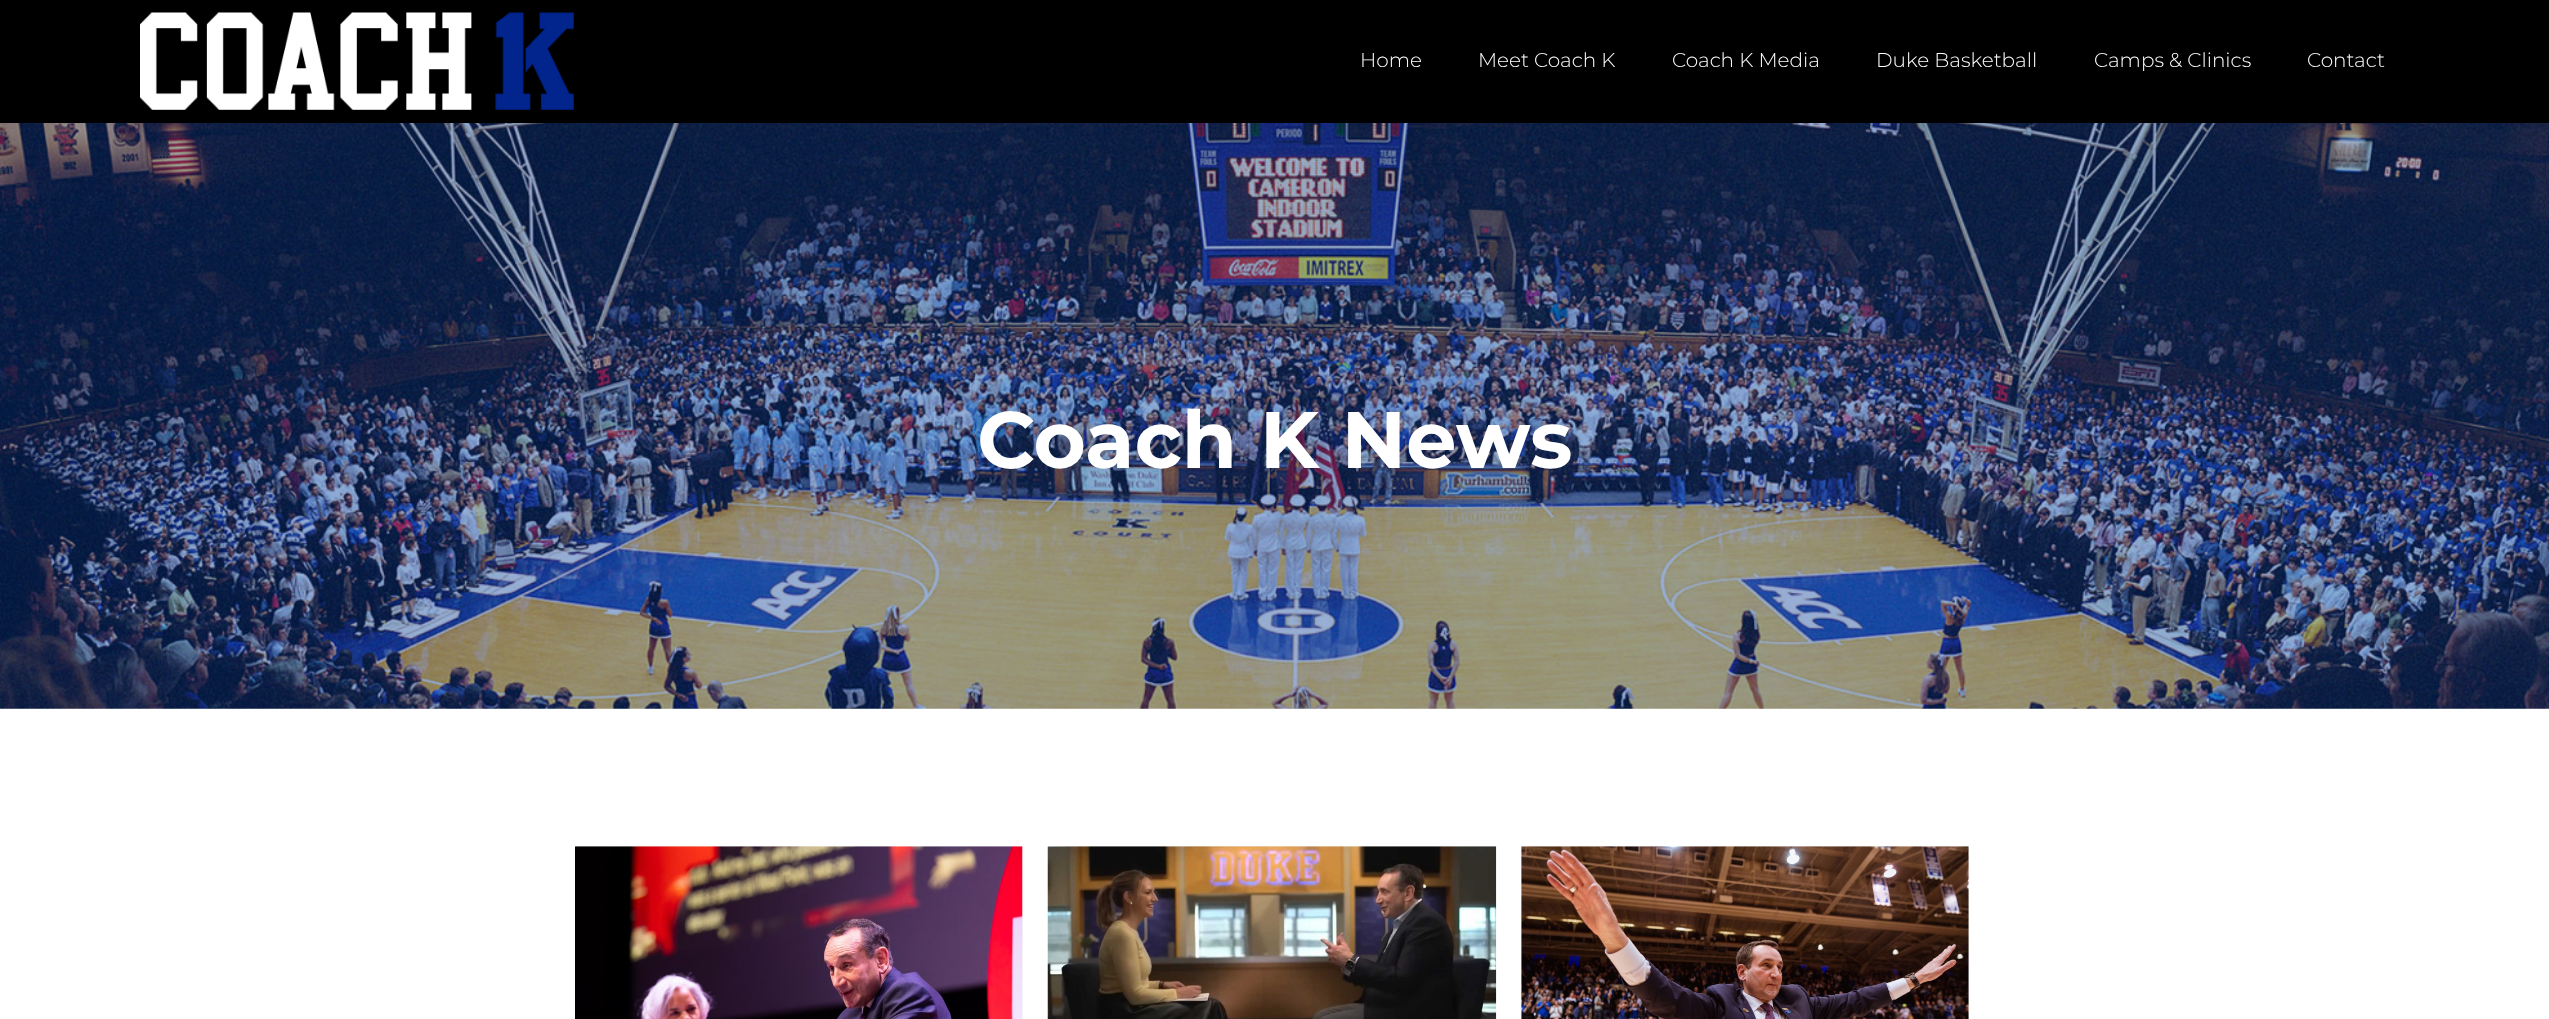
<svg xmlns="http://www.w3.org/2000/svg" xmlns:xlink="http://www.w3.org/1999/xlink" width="2549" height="1019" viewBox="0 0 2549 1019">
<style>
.cls-1{font:300 20px Montserrat;fill:#ffffff}
.cls-2{font:bold 80px Montserrat;fill:#ffffff}
</style>
<rect width="100%" height="100%" fill="#ffffff"/>
<rect fill="#000000" x="0" y="0" width="2549" height="123"/>
<image xlink:href="image0.png" x="140" y="12" width="434" height="98"/>
<image xlink:href="image1.png" x="0" y="123" width="2549" height="586"/>
<rect fill="#f6f6f6" x="575" y="846" width="448" height="173"/>
<image xlink:href="image2.png" x="575" y="846" width="448" height="173"/>
<rect fill="#f6f6f6" x="1048" y="846" width="448" height="1"/>
<image xlink:href="image3.png" x="1047" y="846" width="450" height="173"/>
<rect fill="#f6f6f6" x="1521" y="846" width="448" height="173"/>
<image xlink:href="image4.png" x="1521" y="846" width="448" height="173"/>
<text class="cls-1" x="1360" y="67">Home</text>
<text class="cls-1" x="1478" y="67">Meet Coach K</text>
<text class="cls-1" x="1672" y="67">Coach K Media</text>
<text class="cls-1" x="1876" y="67">Duke Basketball</text>
<text class="cls-1" x="2094" y="67">Camps &amp; Clinics</text>
<text class="cls-1" x="2307" y="67">Contact</text>
<text class="cls-2" x="977" y="468">Coach K News</text>
</svg>
